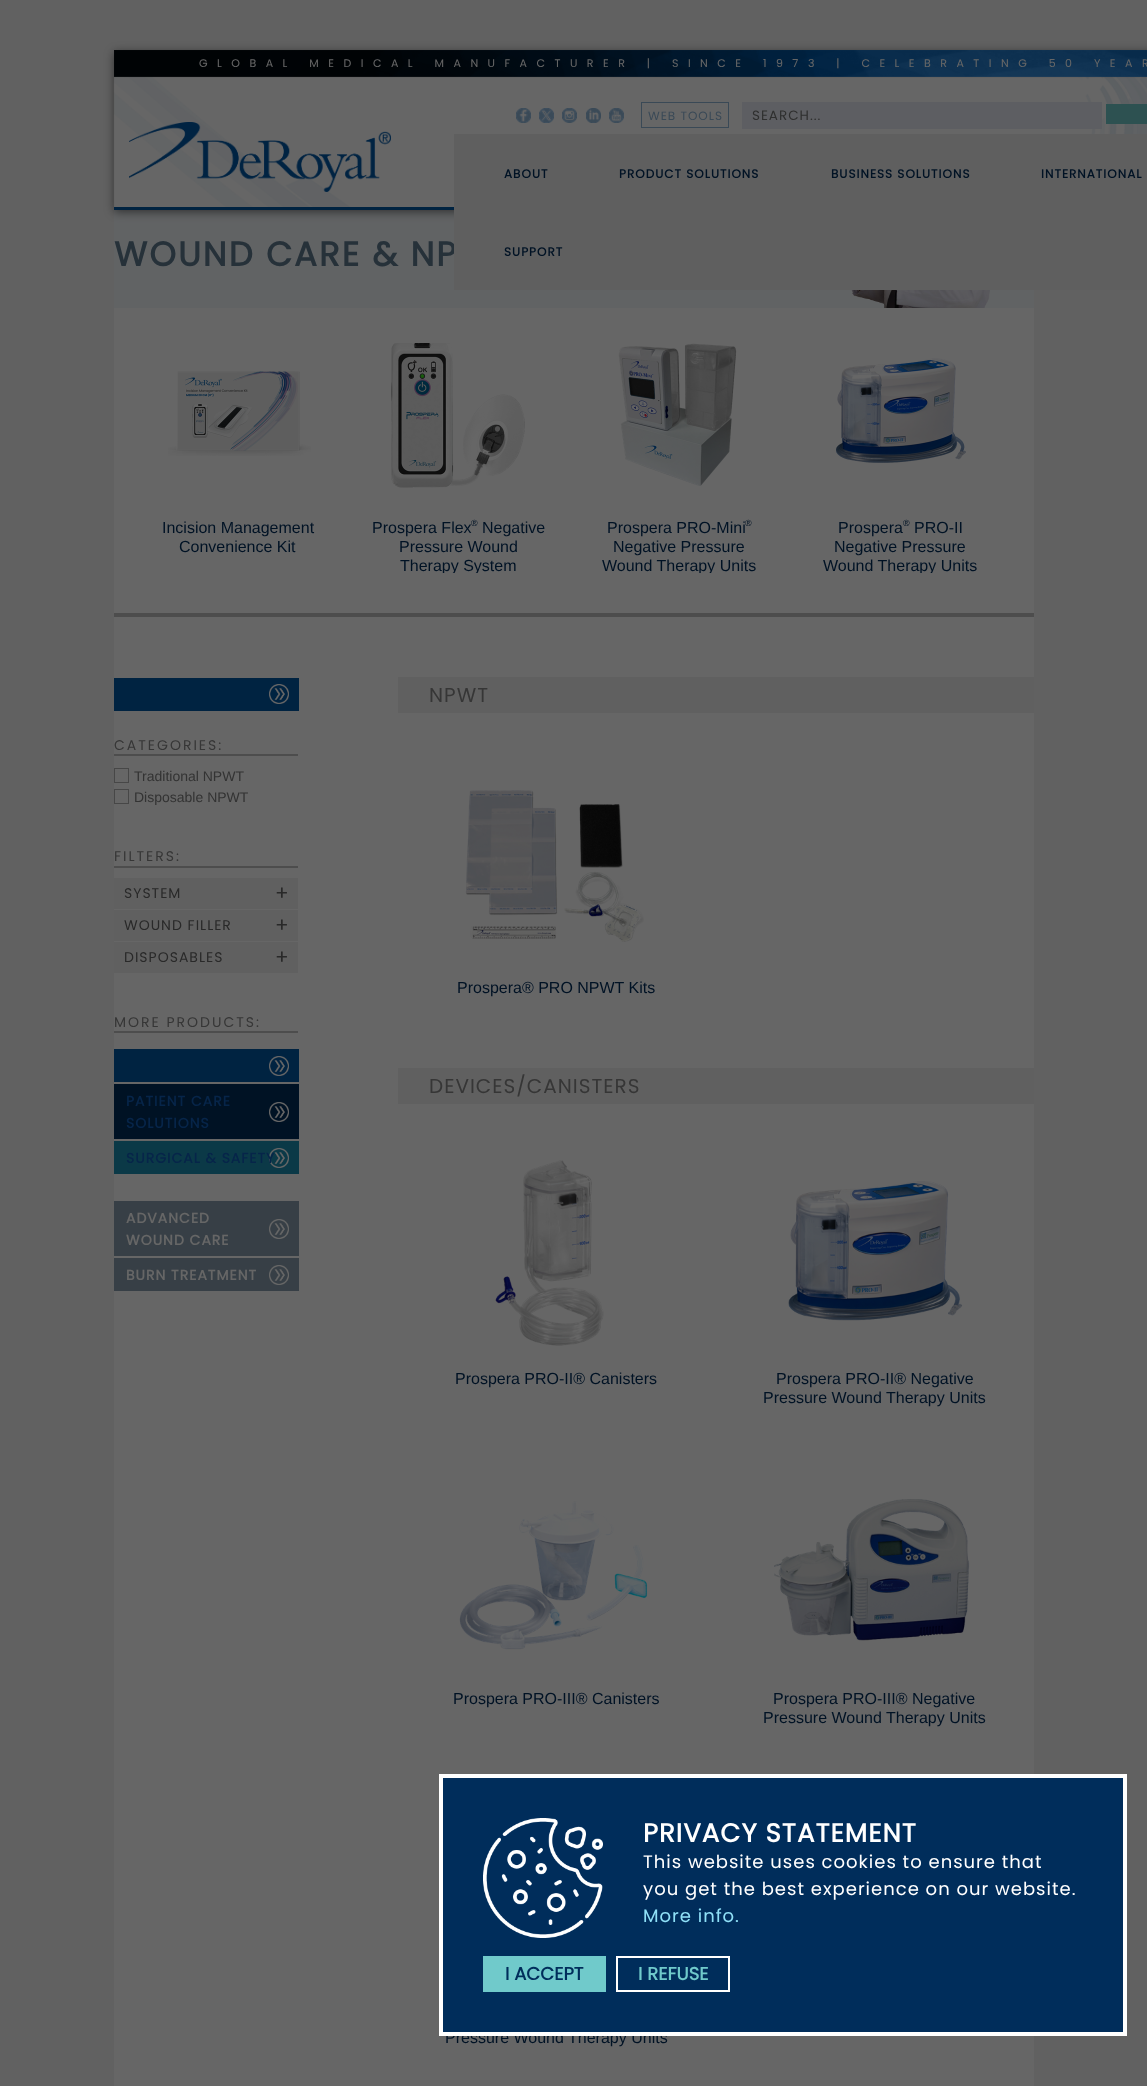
<svg xmlns="http://www.w3.org/2000/svg" xmlns:xlink="http://www.w3.org/1999/xlink" width="1147" height="2086" viewBox="0 0 1147 2086">
<style>
.cls-1{font:11px Poppins;letter-spacing:9.5px;fill:#ffffff}
.cls-2{font:12px Poppins;letter-spacing:1px;fill:#92b7d8}
.cls-3{font:13.5px Poppins;letter-spacing:1px;fill:#757575}
.cls-4{font:bold 34px Poppins;letter-spacing:2px;fill:#607b90}
.cls-5{font:bold 12px Poppins;letter-spacing:1px;fill:#002d5b}
.cls-6{font:16px Liberation Sans;fill:#002d5b}
.cls-7{font:9px Liberation Sans;fill:#002d5b}
.cls-8{font:14px Poppins;letter-spacing:2px;fill:#888888}
.cls-9{font:14px Liberation Sans;fill:#808080}
.cls-10{font:14px Poppins;letter-spacing:1px;fill:#666666}
.cls-11{font:20px Poppins;letter-spacing:1px;fill:#666666}
.cls-12{font:bold 14px Poppins;letter-spacing:1px;fill:#105cb6}
.cls-13{font:bold 14px Poppins;letter-spacing:1px;fill:#ffffff}
.cls-14{font:20px Poppins;letter-spacing:1px;fill:#888888}
.cls-15{font:bold 26px Poppins;letter-spacing:1px;fill:#ffffff}
.cls-16{font:18px Poppins;letter-spacing:1px;fill:#ffffff}
.cls-17{font:18px Poppins;letter-spacing:1px;fill:#8fe0f7}
.cls-18{font:bold 18px Poppins;fill:#002d5b}
.cls-19{font:bold 18px Poppins;fill:#70cacb}
</style>
<defs>
<clipPath id="clip1"><rect x="368" y="518" width="180" height="55"/></clipPath>
<clipPath id="clip2"><rect x="589" y="518" width="180" height="55"/></clipPath>
<clipPath id="clip3"><rect x="810" y="518" width="180" height="55"/></clipPath>
</defs>
<rect width="100%" height="100%" fill="#f2f2f2"/>
<image xlink:href="image8.png" x="114" y="198" width="920" height="110"/>
<rect fill="#000000" fill-opacity="0.5" filter="blur(5px)" x="114" y="52" width="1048" height="160"/>
<image xlink:href="image0.png" x="114" y="50" width="1033" height="27"/>
<image xlink:href="image1.png" x="113" y="76" width="1034" height="134"/>
<rect fill="#0058a4" x="114" y="207" width="340" height="3"/>
<image xlink:href="image2.png" x="129" y="122" width="262" height="70"/>
<image xlink:href="image3.png" x="516" y="108" width="15" height="15"/>
<image xlink:href="image4.png" x="539" y="108" width="15" height="15"/>
<image xlink:href="image5.png" x="562" y="108" width="15" height="15"/>
<image xlink:href="image6.png" x="586" y="108" width="15" height="15"/>
<image xlink:href="image7.png" x="609" y="108" width="15" height="15"/>
<rect fill="none" stroke="#92b7d8" x="641.5" y="102.5" width="87" height="25"/>
<rect fill="#e8ecf4" x="742" y="102" width="360" height="27"/>
<rect fill="#70cacb" x="1106" y="104" width="41" height="20"/>
<rect fill="#ffffff" x="114" y="308" width="920" height="1778"/>
<rect fill="#c1c1c1" x="114" y="613" width="920" height="4"/>
<image xlink:href="image9.png" x="168" y="371" width="143" height="85"/>
<image xlink:href="image10.png" x="391" y="343" width="134" height="145"/>
<image xlink:href="image11.png" x="618" y="343" width="119" height="143"/>
<image xlink:href="image12.png" x="836" y="358" width="130" height="105"/>
<rect fill="#0058a4" x="114" y="678" width="185" height="33"/>
<image xlink:href="image13.png" x="269" y="684" width="20" height="20"/>
<rect fill="#c1c1c1" x="114" y="754" width="184" height="2"/>
<rect fill="none" stroke="#b1b1b1" x="114.5" y="768.5" width="14" height="14"/>
<rect fill="none" stroke="#b1b1b1" x="114.5" y="789.5" width="14" height="14"/>
<rect fill="#c1c1c1" x="114" y="866" width="184" height="2"/>
<rect fill="#f1f1f1" x="114" y="878" width="184" height="31"/>
<rect fill="#f1f1f1" x="114" y="910" width="184" height="31"/>
<rect fill="#f1f1f1" x="114" y="942" width="184" height="31"/>
<rect fill="#c1c1c1" x="114" y="1031" width="184" height="2"/>
<rect fill="#0058a4" x="114" y="1049" width="185" height="33"/>
<image xlink:href="image13.png" x="269" y="1056" width="20" height="20"/>
<rect fill="#002d5b" x="114" y="1084" width="185" height="55"/>
<image xlink:href="image14.png" x="269" y="1102" width="20" height="20"/>
<rect fill="#1d90b2" x="114" y="1141" width="185" height="33"/>
<image xlink:href="image15.png" x="269" y="1148" width="20" height="20"/>
<rect fill="#8a9eae" x="114" y="1201" width="185" height="55"/>
<image xlink:href="image16.png" x="269" y="1219" width="20" height="20"/>
<rect fill="#8a9eae" x="114" y="1258" width="185" height="33"/>
<image xlink:href="image16.png" x="269" y="1265" width="20" height="20"/>
<rect fill="#f1f1f1" x="398" y="677" width="636" height="36"/>
<image xlink:href="image17.png" x="465" y="790" width="179" height="152"/>
<rect fill="#f1f1f1" x="398" y="1068" width="636" height="36"/>
<image xlink:href="image18.png" x="495" y="1160" width="109" height="186"/>
<image xlink:href="image19.png" x="788" y="1181" width="175" height="140"/>
<image xlink:href="image20.png" x="459" y="1501" width="189" height="149"/>
<image xlink:href="image21.png" x="774" y="1499" width="196" height="142"/>
<text class="cls-1" x="199" y="67">GLOBAL MEDICAL MANUFACTURER | SINCE 1973 | CELEBRATING 50 YEAR</text>
<text class="cls-2" x="648" y="120">WEB TOOLS</text>
<text class="cls-3" x="752" y="120">SEARCH...</text>
<text class="cls-4" x="114" y="266">WOUND CARE &amp; NP</text>
<rect fill="#eeeeee" x="454" y="134" width="693" height="156"/>
<text class="cls-5" x="504" y="256">SUPPORT</text>
<text class="cls-5" x="1041" y="178">INTERNATIONAL</text>
<text class="cls-5" x="831" y="178">BUSINESS SOLUTIONS</text>
<text class="cls-5" x="619" y="178">PRODUCT SOLUTIONS</text>
<text class="cls-5" x="504" y="178">ABOUT</text>
<text class="cls-6" x="162" y="533">Incision Management</text>
<text class="cls-6" x="179" y="552">Convenience Kit</text>
<text class="cls-6" x="372" y="533">Prospera Flex</text>
<text class="cls-7" x="471" y="526">®</text>
<text class="cls-6" x="482" y="533">Negative</text>
<text class="cls-6" x="399" y="552">Pressure Wound</text>
<g clip-path="url(#clip1)">
<text class="cls-6" x="400" y="571">Therapy System</text>
</g>
<text class="cls-6" x="607" y="533">Prospera PRO-Mini</text>
<text class="cls-7" x="745" y="526">®</text>
<text class="cls-6" x="613" y="552">Negative Pressure</text>
<g clip-path="url(#clip2)">
<text class="cls-6" x="602" y="571">Wound Therapy Units</text>
</g>
<text class="cls-6" x="838" y="533">Prospera</text>
<text class="cls-7" x="903" y="526">®</text>
<text class="cls-6" x="914" y="533">PRO-II</text>
<text class="cls-6" x="834" y="552">Negative Pressure</text>
<g clip-path="url(#clip3)">
<text class="cls-6" x="823" y="571">Wound Therapy Units</text>
</g>
<text class="cls-8" x="114" y="750">CATEGORIES:</text>
<text class="cls-9"><tspan x="134" y="781">Traditional NPWT</tspan><tspan x="134" y="802">Disposable NPWT</tspan></text>
<text class="cls-8" x="114" y="861">FILTERS:</text>
<text class="cls-10" x="124" y="898">SYSTEM</text>
<text class="cls-11" x="275" y="900">+</text>
<text class="cls-10" x="124" y="930">WOUND FILLER</text>
<text class="cls-11" x="275" y="932">+</text>
<text class="cls-10" x="124" y="962">DISPOSABLES</text>
<text class="cls-11" x="275" y="964">+</text>
<text class="cls-8" x="114" y="1027">MORE PRODUCTS:</text>
<text class="cls-12"><tspan x="126" y="1106">PATIENT CARE</tspan><tspan x="126" y="1128">SOLUTIONS</tspan></text>
<text class="cls-12" x="126" y="1163">SURGICAL &amp; SAFETY</text>
<text class="cls-13"><tspan x="126" y="1223">ADVANCED</tspan><tspan x="126" y="1245">WOUND CARE</tspan></text>
<text class="cls-13" x="126" y="1280">BURN TREATMENT</text>
<text class="cls-14" x="429" y="702">NPWT</text>
<text class="cls-6" x="457" y="993">Prospera® PRO NPWT Kits</text>
<text class="cls-14" x="429" y="1093">DEVICES/CANISTERS</text>
<text class="cls-6" x="455" y="1384">Prospera PRO-II® Canisters</text>
<text class="cls-6" x="776" y="1384">Prospera PRO-II® Negative</text>
<text class="cls-6" x="763" y="1403">Pressure Wound Therapy Units</text>
<text class="cls-6" x="453" y="1704">Prospera PRO-III® Canisters</text>
<text class="cls-6" x="773" y="1704">Prospera PRO-III® Negative</text>
<text class="cls-6" x="763" y="1723">Pressure Wound Therapy Units</text>
<text class="cls-6" x="445" y="2043">Pressure Wound Therapy Units</text>
<rect fill="#000000" fill-opacity="0.6" filter="blur(250px)" x="-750" y="-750" width="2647" height="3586"/>
<rect fill="#002d5b" stroke="#ffffff" stroke-width="4" x="441" y="1776" width="684" height="258"/>
<image xlink:href="image22.png" x="483" y="1818" width="120" height="120"/>
<text class="cls-15" x="643" y="1842">PRIVACY STATEMENT</text>
<text class="cls-16"><tspan x="643" y="1868">This website uses cookies to ensure that</tspan><tspan x="643" y="1895">you get the best experience on our website.</tspan></text>
<text class="cls-17" x="643" y="1922">More info.</text>
<rect fill="#70cacb" x="483" y="1956" width="123" height="36"/>
<text class="cls-18" x="505" y="1980">I ACCEPT</text>
<rect fill="none" stroke="#ffffff" stroke-width="2" x="617" y="1957" width="112" height="34"/>
<text class="cls-19" x="638" y="1980">I REFUSE</text>
</svg>
